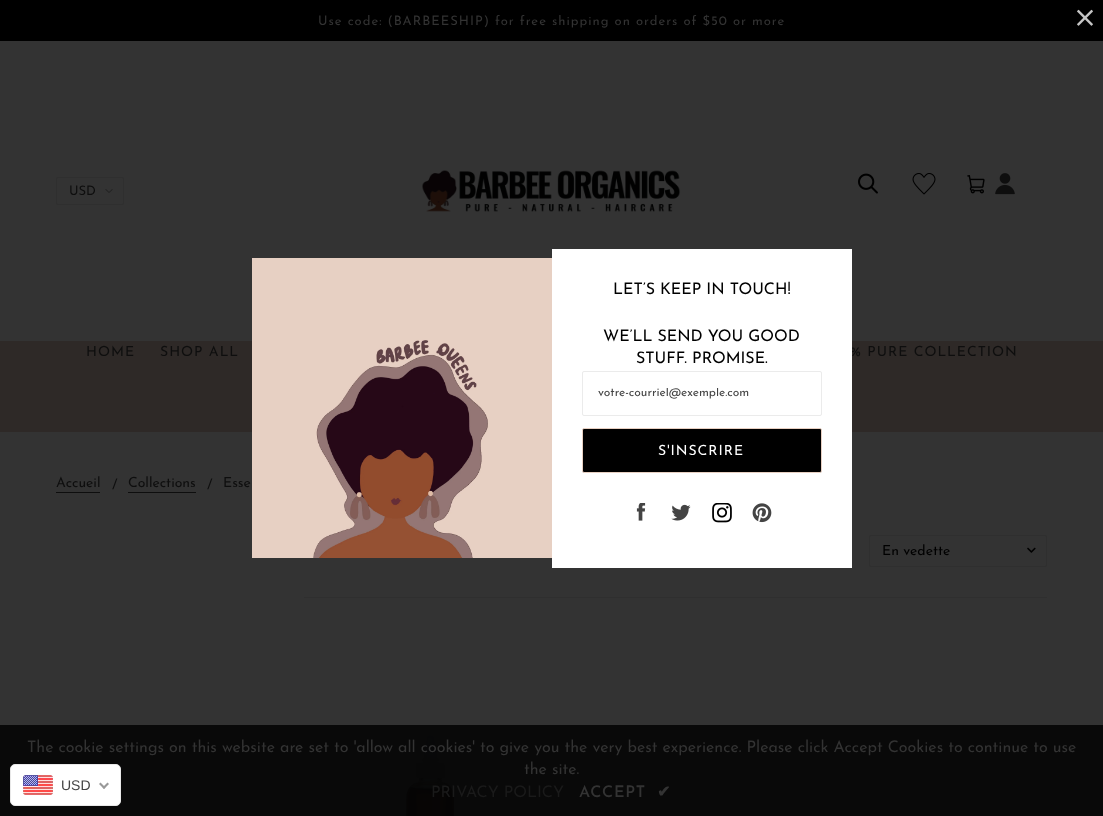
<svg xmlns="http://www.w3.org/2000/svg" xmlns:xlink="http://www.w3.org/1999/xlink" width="1103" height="816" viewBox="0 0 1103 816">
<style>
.cls-1{font:13px Josefin Sans;letter-spacing:1px;fill:#333333}
.cls-2{font:13px Josefin Sans;fill:#0e0e0e}
.cls-3{font:14px Josefin Sans;letter-spacing:1px;fill:#0e0e0e}
.cls-4{font:14px Josefin Sans;fill:#0e0e0e}
.cls-5{font:14px Josefin Sans;fill:#000000}
.cls-6{font:16px Josefin Sans;fill:#000000}
.cls-7{font:12px Josefin Sans;fill:#444444}
.cls-8{font:14px Josefin Sans;letter-spacing:1px;fill:#ffffff}
.cls-9{font:16px Josefin Sans;fill:#333333}
.cls-10{font:16px Josefin Sans;fill:#1a1a1a}
.cls-11{font:600 16px Josefin Sans;letter-spacing:0.75px;fill:#333333}
.cls-12{font:bold 16px DejaVu Sans;letter-spacing:0.75px;fill:#333333}
.cls-13{font:14px Liberation Sans;fill:#444444}
</style>
<defs>
<clipPath id="clip1"><rect x="598" y="388" width="208" height="12"/></clipPath>
</defs>
<rect width="100%" height="100%" fill="#333333"/>
<rect fill="#090909" x="0" y="725" width="1103" height="91"/>
<rect fill="#000000" x="0" y="0" width="1103" height="41"/>
<image xlink:href="image0.png" x="105" y="189" width="8" height="4"/>
<rect fill="none" stroke="#2f2f2f" x="56.5" y="177.5" width="67" height="27" rx="1.5"/>
<image xlink:href="image1.png" x="422" y="170" width="259" height="42"/>
<image xlink:href="image2.png" x="858" y="173" width="20" height="21"/>
<image xlink:href="image3.png" x="912" y="173" width="24" height="22"/>
<image xlink:href="image4.png" x="967" y="175" width="18" height="19"/>
<image xlink:href="image5.png" x="995" y="173" width="20" height="22"/>
<rect fill="#2e2927" x="0" y="341" width="1103" height="91"/>
<rect fill="#0e0e0e" x="56" y="492" width="44" height="1"/>
<rect fill="#0e0e0e" x="128" y="492" width="68" height="1"/>
<rect fill="#2f2f2f" x="304" y="597" width="743" height="1"/>
<rect fill="none" stroke="#2f2f2f" x="869.5" y="535.5" width="177" height="31" rx="1.5"/>
<image xlink:href="image6.png" x="1027" y="547" width="9" height="6"/>
<image xlink:href="image7.png" x="406" y="735" width="48" height="81"/>
<image xlink:href="image8.png" x="1077" y="9" width="16" height="17"/>
<image xlink:href="image9.png" x="252" y="258" width="300" height="300"/>
<rect fill="#ffffff" stroke="#e8e8e8" x="10.5" y="764.5" width="110" height="41" rx="4.5"/>
<image xlink:href="image14.png" x="23" y="775" width="30" height="20"/>
<path fill="#999999" d="M107.5 782.5L109 784L104 789L102.5 787.5Z"/>
<path fill="#999999" d="M100.5 782.5L105.5 787.5L104 789L99 784Z"/>
<text class="cls-1" x="318" y="25">Use code: (BARBEESHIP) for free shipping on orders of $50 or more</text>
<text class="cls-2" x="69" y="195">USD</text>
<text class="cls-3" x="86" y="356">HOME</text>
<text class="cls-3" x="160" y="356">SHOP ALL</text>
<text class="cls-3" x="850" y="356">% PURE COLLECTION</text>
<text class="cls-4" x="56" y="487">Accueil</text>
<text class="cls-4" x="112" y="489">/</text>
<text class="cls-4" x="128" y="487">Collections</text>
<text class="cls-4" x="207" y="489">/</text>
<text class="cls-4" x="223" y="487">Esse</text>
<text class="cls-5" x="882" y="555">En vedette</text>
<rect fill="#ffffff" x="552" y="249" width="300" height="319"/>
<text class="cls-6" x="613" y="294">LET’S KEEP IN TOUCH!</text>
<text class="cls-6" x="603" y="341">WE’LL SEND YOU GOOD</text>
<text class="cls-6" x="636" y="363">STUFF. PROMISE.</text>
<rect fill="none" stroke="#ebebeb" x="582.5" y="371.5" width="239" height="44" rx="1.5"/>
<g clip-path="url(#clip1)">
<text class="cls-7" x="598" y="396">votre-courriel@exemple.com</text>
</g>
<rect fill="#000000" stroke="#e7cfc1" x="582.5" y="428.5" width="239" height="44" rx="1.5"/>
<text class="cls-8" x="658" y="455">S'INSCRIRE</text>
<image xlink:href="image10.png" x="636" y="503" width="10" height="18"/>
<image xlink:href="image11.png" x="671" y="504" width="20" height="17"/>
<image xlink:href="image12.png" x="712" y="503" width="20" height="20"/>
<image xlink:href="image13.png" x="752" y="503" width="20" height="20"/>
<text class="cls-9" x="27" y="752">The cookie settings on this website are set to 'allow all cookies' to give you the very best experience. Please click Accept Cookies to continue to use</text>
<text class="cls-9" x="524" y="774">the site.</text>
<text class="cls-10" x="431" y="797">PRIVACY POLICY</text>
<text class="cls-11" x="579" y="797">ACCEPT</text>
<text class="cls-12" x="657" y="797">✔</text>
<text class="cls-13" x="61" y="790">USD</text>
</svg>
